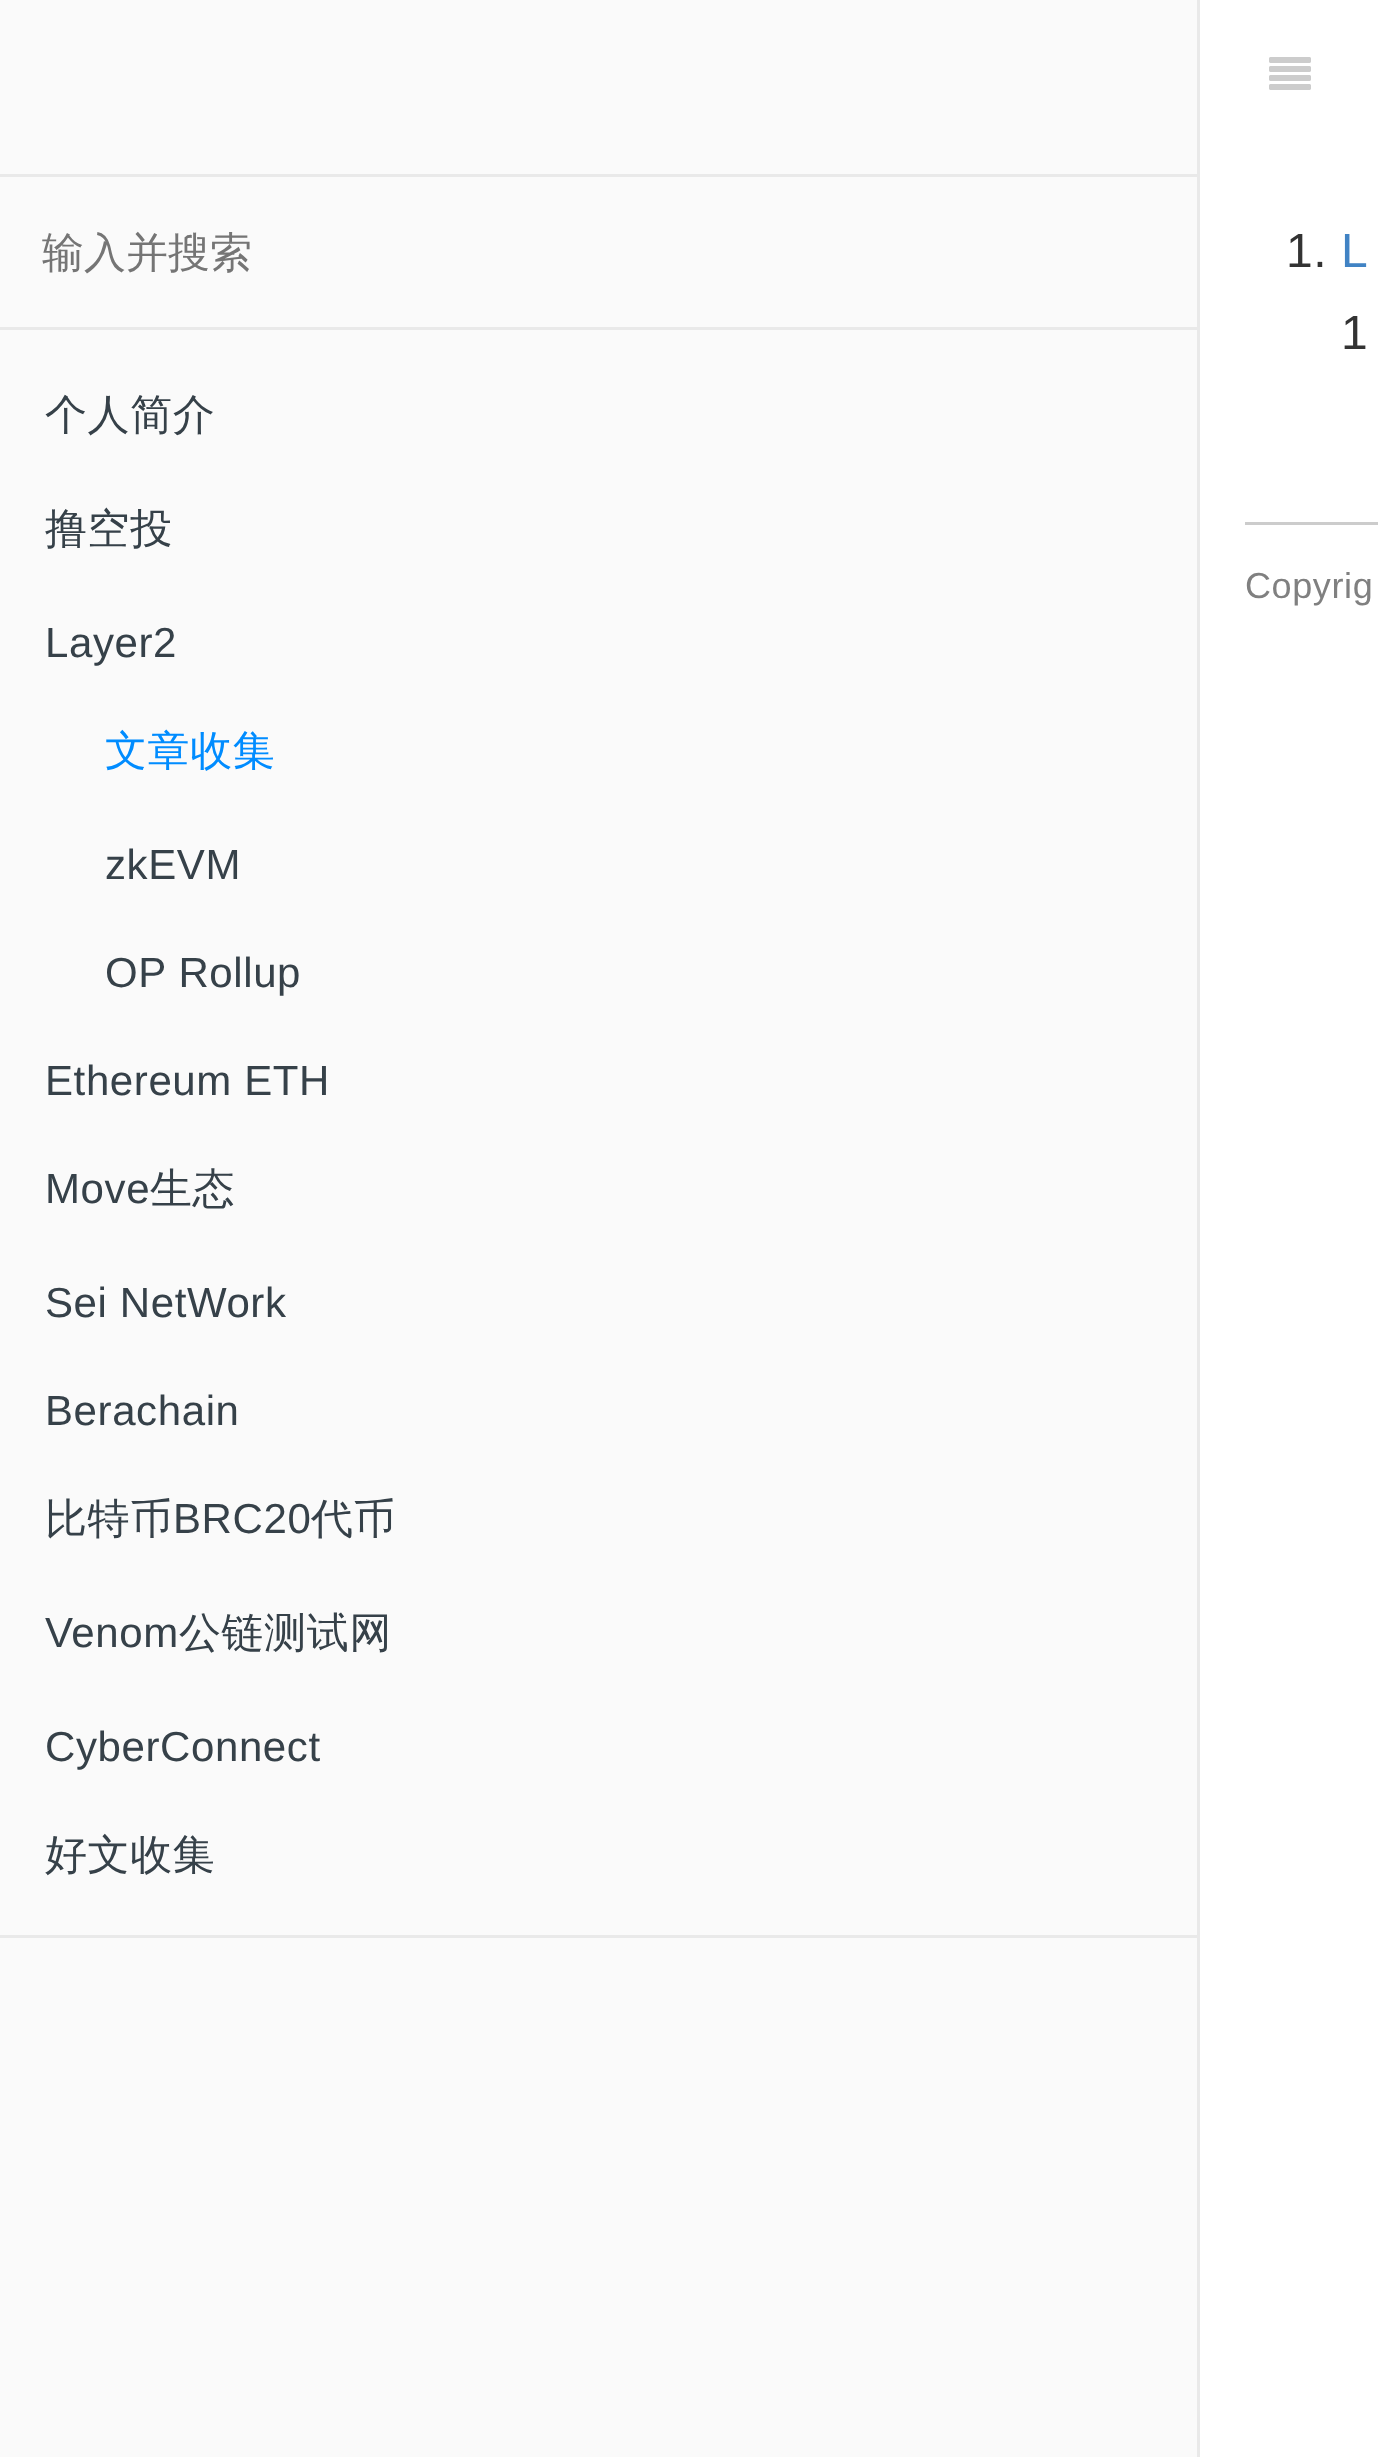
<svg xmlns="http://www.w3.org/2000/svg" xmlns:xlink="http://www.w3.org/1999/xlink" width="1378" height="2457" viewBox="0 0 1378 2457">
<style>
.cls-1{font:500 42px WenQuanYi Zen Hei;fill:#757575}
.cls-2{font:500 42px WenQuanYi Zen Hei;letter-spacing:0.6px;fill:#364149}
.cls-3{font:42px Liberation Sans;letter-spacing:0.6px;fill:#364149}
.cls-4{font:500 42px WenQuanYi Zen Hei;letter-spacing:0.6px;fill:#008cff}
.cls-5{font:48px Liberation Sans;letter-spacing:0.6px;fill:#333333}
.cls-6{font:48px Liberation Sans;letter-spacing:0.6px;fill:#4183c4}
.cls-7{font:36px Liberation Sans;letter-spacing:0.6px;fill:#808080}
</style>
<rect width="100%" height="100%" fill="#ffffff"/>
<rect fill="#fafafa" x="0" y="0" width="1197" height="2457"/>
<rect fill="#e9e9e9" x="1197" y="0" width="3" height="2457"/>
<rect fill="#e9e9e9" x="0" y="174" width="1197" height="3"/>
<rect fill="#e9e9e9" x="0" y="327" width="1197" height="3"/>
<rect fill="#e9e9e9" x="0" y="1935" width="1197" height="3"/>
<image xlink:href="image0.png" x="1269" y="57" width="42" height="33"/>
<rect fill="#cccccc" x="1245" y="522" width="133" height="3"/>
<text class="cls-1" x="42" y="267">输入并搜索</text>
<text class="cls-2" x="45" y="429">个人简介</text>
<text class="cls-2" x="45" y="543">撸空投</text>
<text class="cls-3" x="45" y="657">Layer2</text>
<text class="cls-4" x="105" y="765">文章收集</text>
<text class="cls-3" x="105" y="879">zkEVM</text>
<text class="cls-3" x="105" y="987">OP Rollup</text>
<text class="cls-3" x="45" y="1095">Ethereum ETH</text>
<text class="cls-3" x="45" y="1203">Move</text>
<text class="cls-2" x="150" y="1203">生态</text>
<text class="cls-3" x="45" y="1317">Sei NetWork</text>
<text class="cls-3" x="45" y="1425">Berachain</text>
<text class="cls-2" x="45" y="1533">比特币</text>
<text class="cls-3" x="173" y="1533">BRC20</text>
<text class="cls-2" x="311" y="1533">代币</text>
<text class="cls-3" x="45" y="1647">Venom</text>
<text class="cls-2" x="179" y="1647">公链测试网</text>
<text class="cls-3" x="45" y="1761">CyberConnect</text>
<text class="cls-2" x="45" y="1869">好文收集</text>
<text class="cls-5" x="1286" y="267">1.</text>
<text class="cls-6" x="1341" y="267">L</text>
<text class="cls-5" x="1341" y="349">1</text>
<text class="cls-7" x="1245" y="598">Copyrig</text>
</svg>
